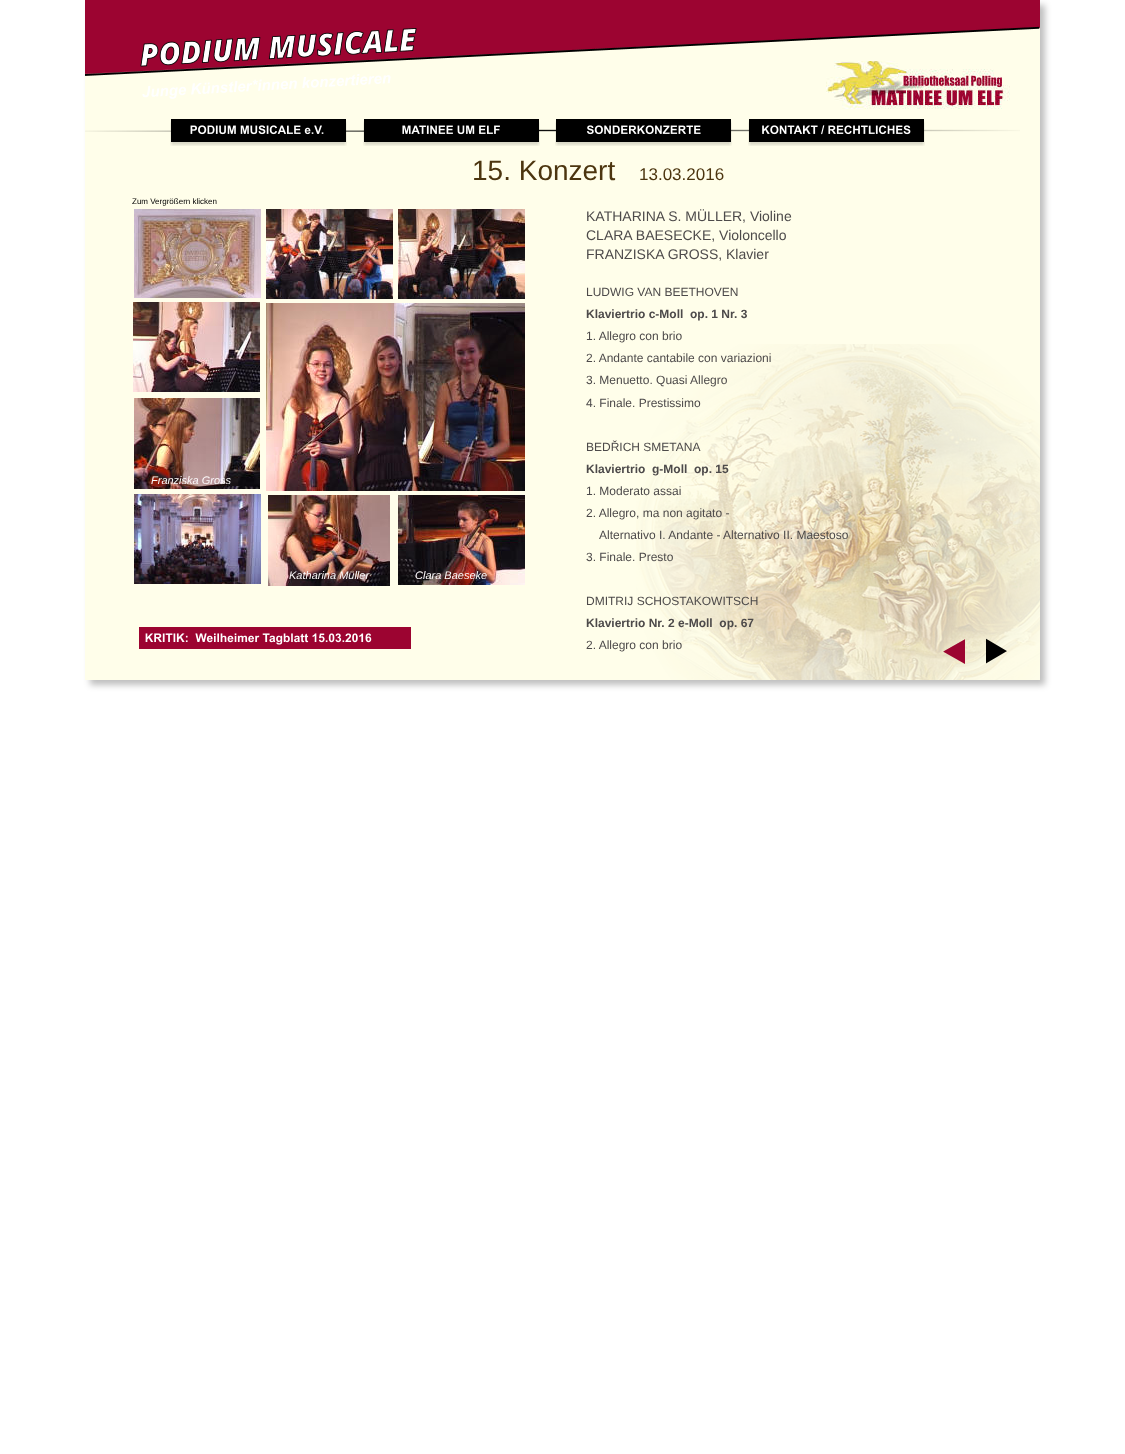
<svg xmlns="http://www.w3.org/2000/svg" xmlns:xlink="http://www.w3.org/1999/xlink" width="1125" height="1454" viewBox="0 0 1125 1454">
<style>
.cls-1{font:28px Liberation Sans;fill:#4c350f}
.cls-2{font:17px Liberation Sans;fill:#4c350f}
.cls-3{font:8px Liberation Sans;fill:#000000}
.cls-4{font:14px Liberation Sans;fill:#4d4a4a}
.cls-5{font:12px Liberation Sans;fill:#4d4a4a}
.cls-6{font:bold 12px Liberation Sans;fill:#4d4a4a}
.cls-7{font:italic 11px Liberation Sans;fill:#fcf9f9}
</style>
<rect width="100%" height="100%" fill="#ffffff"/>
<rect fill="#000000" fill-opacity="0.25" filter="blur(3px)" x="90" y="5" width="955" height="680"/>
<rect fill="#fffeea" x="85" y="27" width="955" height="653"/>
<image xlink:href="image7.png" x="85" y="129" width="935" height="3"/>
<image xlink:href="image0.png" x="170" y="119" width="177" height="27"/>
<image xlink:href="image1.png" x="363" y="119" width="177" height="27"/>
<image xlink:href="image2.png" x="555" y="119" width="177" height="27"/>
<image xlink:href="image3.png" x="748" y="119" width="177" height="27"/>
<image xlink:href="image4.png" x="85" y="0" width="955" height="76"/>
<image xlink:href="image5.png" x="140" y="28" width="277" height="71"/>
<image xlink:href="image6.png" x="826" y="61" width="184" height="48"/>
<image xlink:href="image8.png" x="134" y="209" width="127" height="89"/>
<image xlink:href="image9.png" x="266" y="209" width="127" height="90"/>
<image xlink:href="image10.png" x="398" y="209" width="127" height="90"/>
<image xlink:href="image11.png" x="133" y="302" width="127" height="90"/>
<image xlink:href="image12.png" x="266" y="303" width="259" height="188"/>
<image xlink:href="image13.png" x="134" y="398" width="126" height="91"/>
<image xlink:href="image14.png" x="636" y="344" width="404" height="336"/>
<image xlink:href="image15.png" x="134" y="494" width="127" height="90"/>
<image xlink:href="image16.png" x="268" y="495" width="122" height="91"/>
<image xlink:href="image17.png" x="398" y="495" width="127" height="90"/>
<image xlink:href="image18.png" x="139" y="627" width="272" height="22"/>
<image xlink:href="image19.png" x="943" y="639" width="22" height="25"/>
<image xlink:href="image20.png" x="986" y="638" width="21" height="26"/>
<text class="cls-1" x="472" y="180">15. Konzert</text>
<text class="cls-2" x="639" y="180">13.03.2016</text>
<text class="cls-3" x="132" y="204">Zum Vergrößern klicken</text>
<text class="cls-4"><tspan x="586" y="221">KATHARINA S. MÜLLER, Violine</tspan><tspan x="586" y="240">CLARA BAESECKE, Violoncello</tspan><tspan x="586" y="259">FRANZISKA GROSS, Klavier</tspan></text>
<text class="cls-5" x="586" y="296">LUDWIG VAN BEETHOVEN</text>
<text class="cls-6" xml:space="preserve" x="586" y="318">Klaviertrio c-Moll  op. 1 Nr. 3</text>
<text class="cls-5"><tspan x="586" y="340">1. Allegro con brio</tspan><tspan x="586" y="362">2. Andante cantabile con variazioni</tspan><tspan x="586" y="384">3. Menuetto. Quasi Allegro</tspan><tspan x="586" y="407">4. Finale. Prestissimo</tspan></text>
<text class="cls-5" x="586" y="451">BEDŘICH SMETANA</text>
<text class="cls-6" xml:space="preserve" x="586" y="473">Klaviertrio  g-Moll  op. 15</text>
<text class="cls-5"><tspan x="586" y="495">1. Moderato assai</tspan><tspan x="586" y="517">2. Allegro, ma non agitato -</tspan></text>
<text class="cls-5" x="599" y="539">Alternativo I. Andante - Alternativo II. Maestoso</text>
<text class="cls-5" x="586" y="561">3. Finale. Presto</text>
<text class="cls-5" x="586" y="605">DMITRIJ SCHOSTAKOWITSCH</text>
<text class="cls-6" xml:space="preserve" x="586" y="627">Klaviertrio Nr. 2 e-Moll  op. 67</text>
<text class="cls-5" x="586" y="649">2. Allegro con brio</text>
<text class="cls-7" x="151" y="484">Franziska Gross</text>
<text class="cls-7" x="289" y="579">Katharina Müller</text>
<text class="cls-7" x="415" y="579">Clara Baeseke</text>
</svg>
